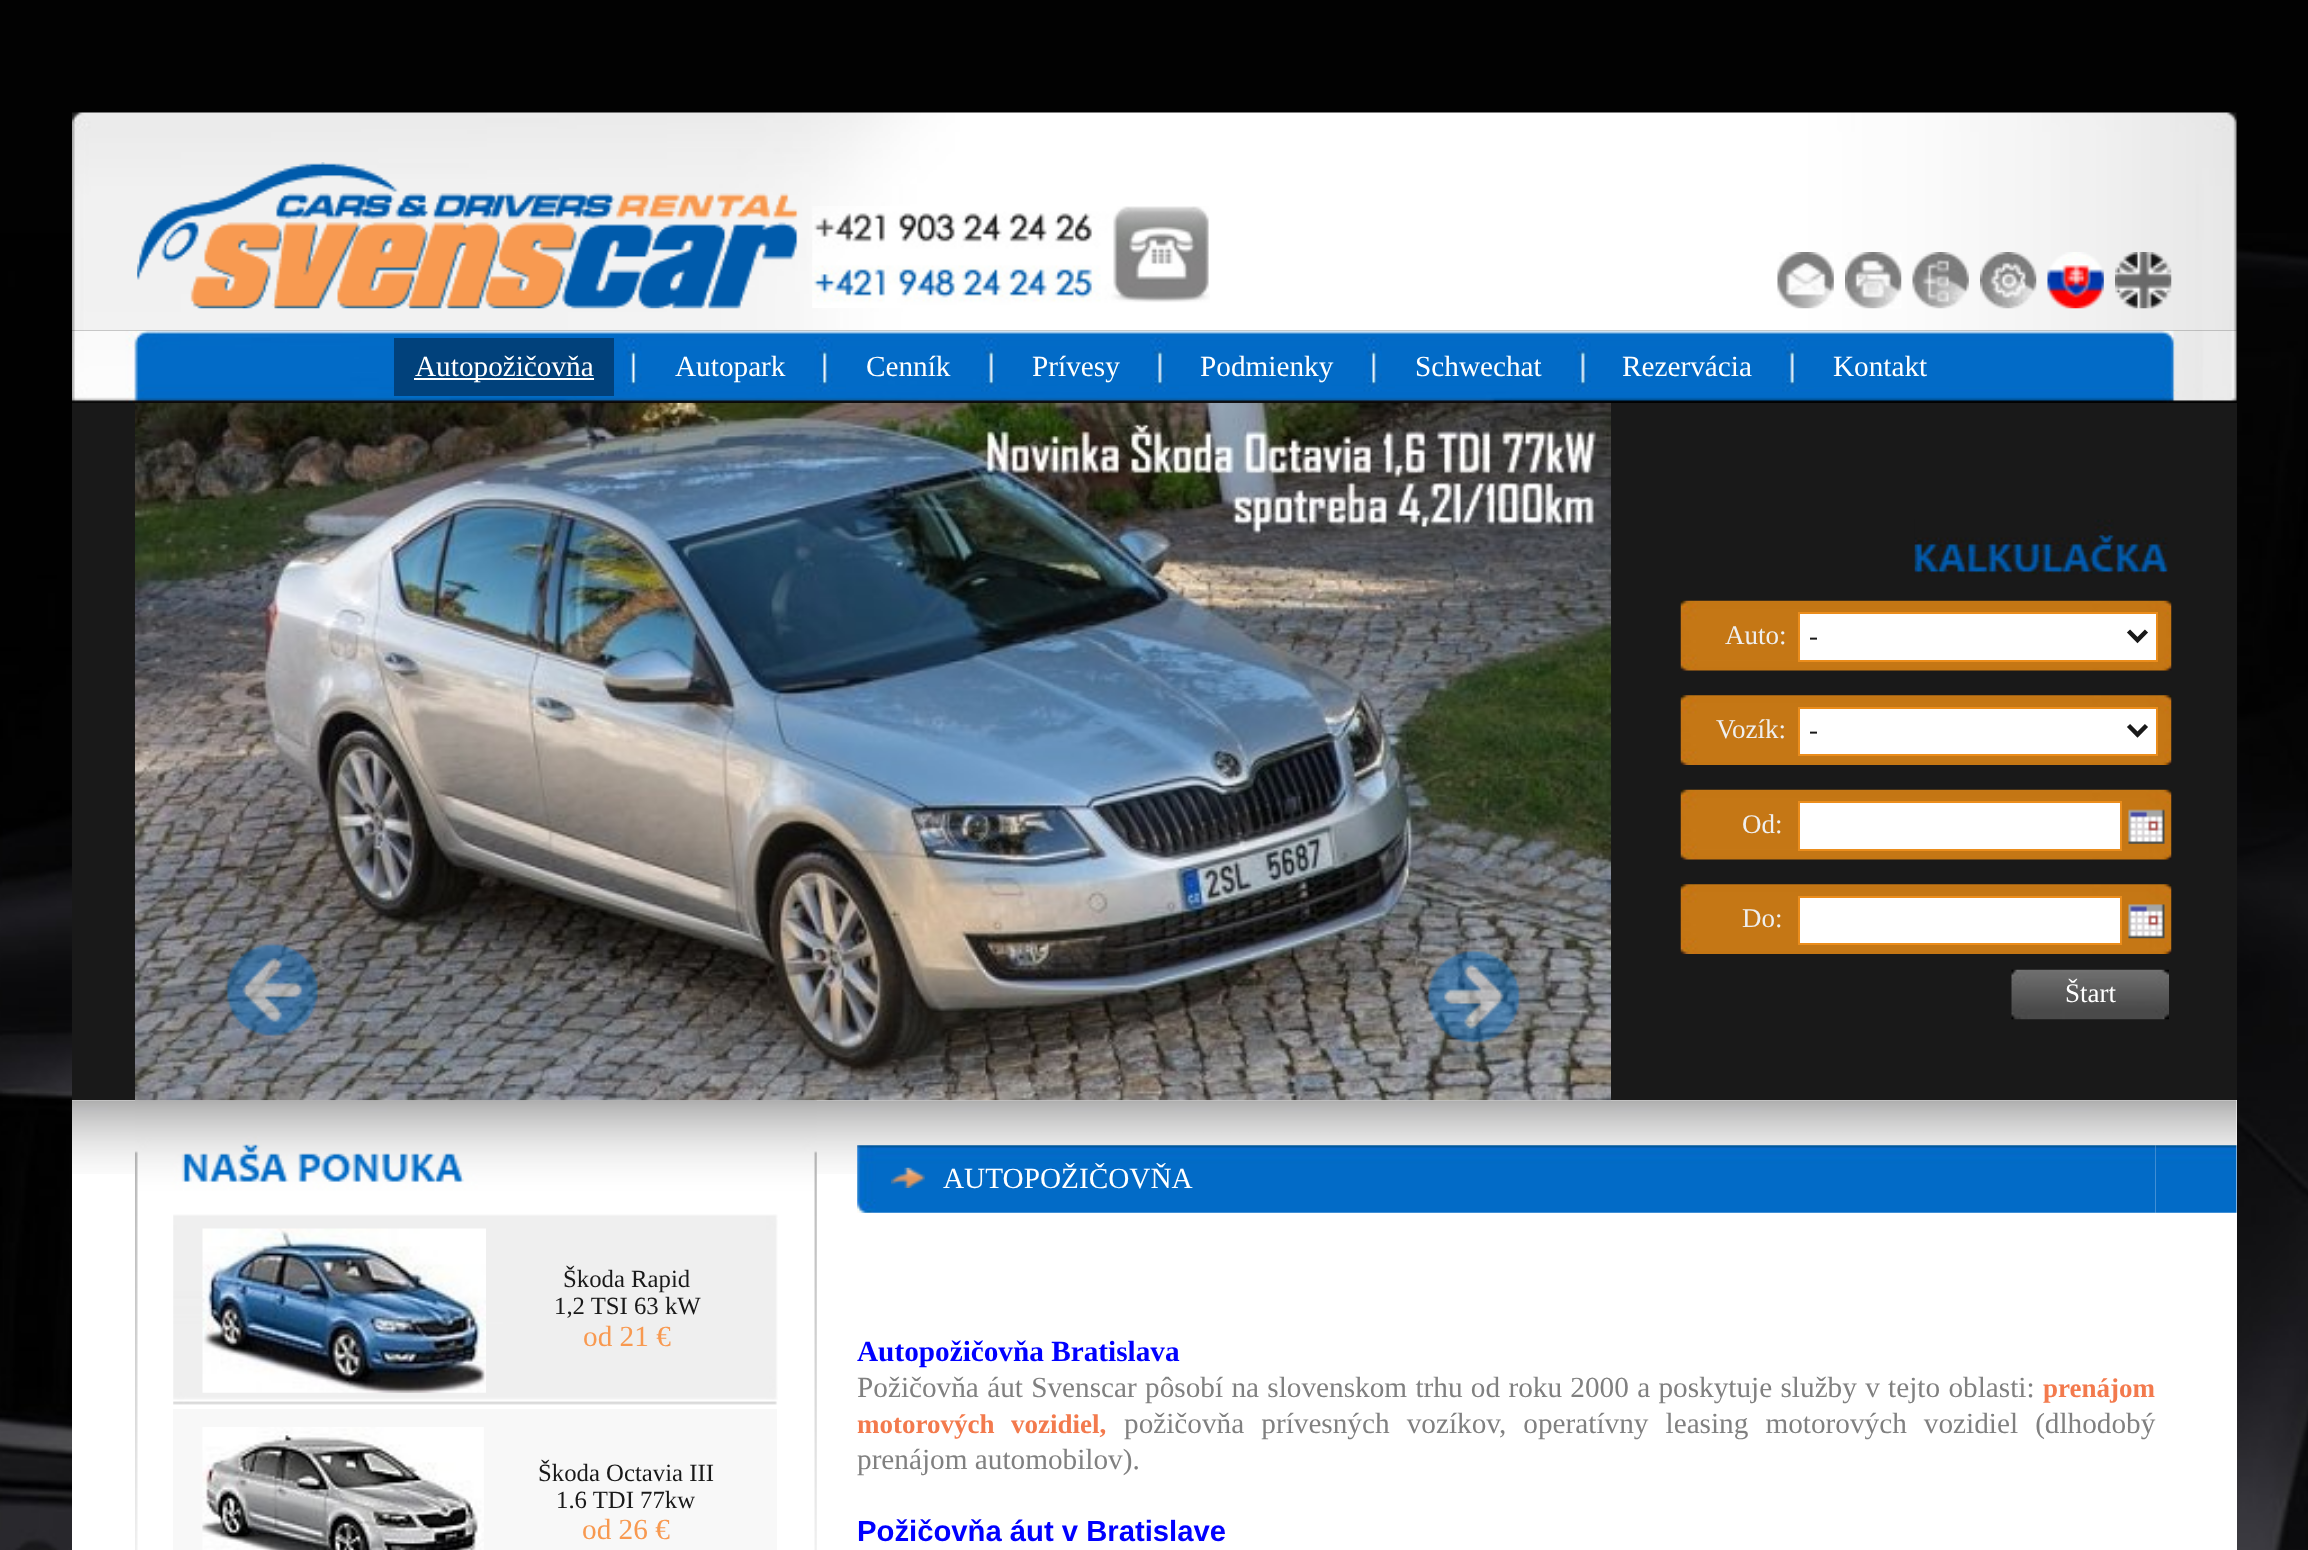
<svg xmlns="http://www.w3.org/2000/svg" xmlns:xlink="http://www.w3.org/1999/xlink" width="2308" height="1550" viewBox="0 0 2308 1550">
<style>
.cls-1{font:29.25px Liberation Serif;fill:#ffffff}
.cls-2{font:27px Liberation Serif;fill:#efefef}
.cls-3{font:27px Liberation Serif;fill:#191919}
.cls-4{font:27px Liberation Serif;fill:#ffffff}
.cls-5{font:24.75px Liberation Serif;fill:#191919}
.cls-6{font:29.25px Liberation Serif;fill:#f89950}
.cls-7{font:bold 29.25px Liberation Serif;fill:#0000ff}
.cls-8{font:29.25px Liberation Serif;fill:#808080}
.cls-9{font:bold 27px Liberation Serif;fill:#f37a4d}
.cls-10{font:bold 29.25px Liberation Sans;fill:#0000ff}
</style>
<rect width="100%" height="100%" fill="#020202"/>
<image xlink:href="image0.png" x="0" y="233" width="2308" height="1317"/>
<image xlink:href="image1.png" x="72" y="112" width="2165" height="219"/>
<image xlink:href="image2.png" x="137" y="162" width="662" height="147"/>
<image xlink:href="image3.png" x="812" y="206" width="398" height="102"/>
<image xlink:href="image4.png" x="1777" y="252" width="57" height="57"/>
<image xlink:href="image5.png" x="1845" y="252" width="57" height="57"/>
<image xlink:href="image6.png" x="1912" y="252" width="57" height="57"/>
<image xlink:href="image7.png" x="1980" y="252" width="57" height="57"/>
<image xlink:href="image8.png" x="2047" y="252" width="57" height="57"/>
<image xlink:href="image9.png" x="2115" y="252" width="57" height="57"/>
<image xlink:href="image10.png" x="72" y="330" width="2165" height="73"/>
<rect fill="#01417b" x="394" y="338" width="220" height="58"/>
<rect fill="#ffffff" x="414" y="378" width="180" height="2"/>
<image xlink:href="image11.png" x="623" y="337" width="19" height="55"/>
<rect fill="#026bc8" x="655" y="386" width="151" height="5"/>
<image xlink:href="image12.png" x="814" y="337" width="19" height="55"/>
<rect fill="#026bc8" x="846" y="386" width="124" height="5"/>
<image xlink:href="image13.png" x="981" y="337" width="20" height="55"/>
<rect fill="#026bc8" x="1010" y="386" width="129" height="5"/>
<image xlink:href="image14.png" x="1150" y="337" width="19" height="55"/>
<rect fill="#026bc8" x="1179" y="386" width="176" height="5"/>
<image xlink:href="image15.png" x="1363" y="337" width="19" height="55"/>
<rect fill="#026bc8" x="1395" y="386" width="167" height="5"/>
<image xlink:href="image16.png" x="1573" y="337" width="18" height="55"/>
<rect fill="#026bc8" x="1602" y="387" width="171" height="4"/>
<image xlink:href="image17.png" x="1782" y="337" width="18" height="55"/>
<rect fill="#026bc8" x="1814" y="387" width="135" height="4"/>
<rect fill="#191919" x="72" y="403" width="2165" height="697"/>
<rect fill="#ffffff" x="72" y="1100" width="2165" height="450"/>
<image xlink:href="image27.png" x="72" y="1100" width="2165" height="74"/>
<image xlink:href="image28.png" x="135" y="1100" width="682" height="450"/>
<image xlink:href="image18.png" x="135" y="402" width="1476" height="699"/>
<image xlink:href="image19.png" x="225" y="943" width="95" height="117"/>
<image xlink:href="image20.png" x="1426" y="949" width="95" height="118"/>
<image xlink:href="image21.png" x="1914" y="519" width="254" height="56"/>
<image xlink:href="image22.png" x="1680" y="600" width="492" height="71"/>
<rect fill="#ffffff" stroke="#eb8d1c" stroke-width="2" x="1799" y="613" width="358" height="48"/>
<path fill="none" stroke="#191919" stroke-width="4.5" d="M2128.5 631L2137.5 640L2146.5 631"/>
<image xlink:href="image23.png" x="1680" y="695" width="492" height="70"/>
<rect fill="#ffffff" stroke="#eb8d1c" stroke-width="2" x="1799" y="708" width="358" height="47"/>
<path fill="none" stroke="#191919" stroke-width="4.5" d="M2128.5 725.5L2137.5 734.5L2146.5 725.5"/>
<image xlink:href="image22.png" x="1680" y="789" width="492" height="71"/>
<rect fill="#ffffff" stroke="#eb8d1c" stroke-width="2" x="1799" y="802" width="322" height="48"/>
<image xlink:href="image24.png" x="2128" y="809" width="37" height="35"/>
<image xlink:href="image23.png" x="1680" y="884" width="492" height="70"/>
<rect fill="#ffffff" stroke="#eb8d1c" stroke-width="2" x="1799" y="897" width="322" height="47"/>
<image xlink:href="image25.png" x="2128" y="904" width="37" height="35"/>
<image xlink:href="image26.png" x="2011" y="969" width="158" height="51"/>
<image xlink:href="image29.png" x="173" y="1214" width="605" height="191"/>
<image xlink:href="image30.png" x="202" y="1228" width="284" height="165"/>
<rect fill="#f8f8f8" x="173" y="1409" width="604" height="141"/>
<image xlink:href="image31.png" x="202" y="1427" width="282" height="123"/>
<image xlink:href="image32.png" x="857" y="1145" width="1299" height="68"/>
<image xlink:href="image33.png" x="891" y="1167" width="34" height="21"/>
<image xlink:href="image34.png" x="2155" y="1145" width="82" height="68"/>
<text class="cls-1" x="415" y="376">Autopožičovňa</text>
<text class="cls-1" x="675" y="376">Autopark</text>
<text class="cls-1" x="866" y="376">Cenník</text>
<text class="cls-1" x="1032" y="376">Prívesy</text>
<text class="cls-1" x="1200" y="376">Podmienky</text>
<text class="cls-1" x="1415" y="376">Schwechat</text>
<text class="cls-1" x="1622" y="376">Rezervácia</text>
<text class="cls-1" x="1833" y="376">Kontakt</text>
<text class="cls-2" x="1725" y="644">Auto:</text>
<text class="cls-3" x="1809" y="645">-</text>
<text class="cls-2" x="1716" y="738">Vozík:</text>
<text class="cls-3" x="1809" y="739">-</text>
<text class="cls-2" x="1742" y="833">Od:</text>
<text class="cls-2" x="1742" y="927">Do:</text>
<text class="cls-4" x="2065" y="1002">Štart</text>
<text class="cls-5" x="563" y="1287">Škoda Rapid</text>
<text class="cls-5" x="554" y="1314">1,2 TSI 63 kW</text>
<text class="cls-6" x="583" y="1346">od 21 €</text>
<text class="cls-5" x="538" y="1481">Škoda Octavia III</text>
<text class="cls-5" x="556" y="1508">1.6 TDI 77kw</text>
<text class="cls-6" x="582" y="1539">od 26 €</text>
<text class="cls-1" x="943" y="1188">AUTOPOŽIČOVŇA</text>
<text class="cls-7" x="857" y="1361">Autopožičovňa Bratislava</text>
<text class="cls-8" x="857" y="1397" word-spacing="1">Požičovňa áut Svenscar pôsobí na slovenskom trhu od roku 2000 a poskytuje služby v tejto oblasti:</text>
<text class="cls-9" x="2043" y="1397">prenájom</text>
<text class="cls-9" x="857" y="1433" word-spacing="9.75">motorových vozidiel,</text>
<text class="cls-8" x="1124" y="1433" word-spacing="9.75">požičovňa prívesných vozíkov, operatívny leasing motorových vozidiel (dlhodobý</text>
<text class="cls-8" x="857" y="1469">prenájom automobilov).</text>
<text class="cls-10" x="857" y="1541">Požičovňa áut v Bratislave</text>
</svg>
